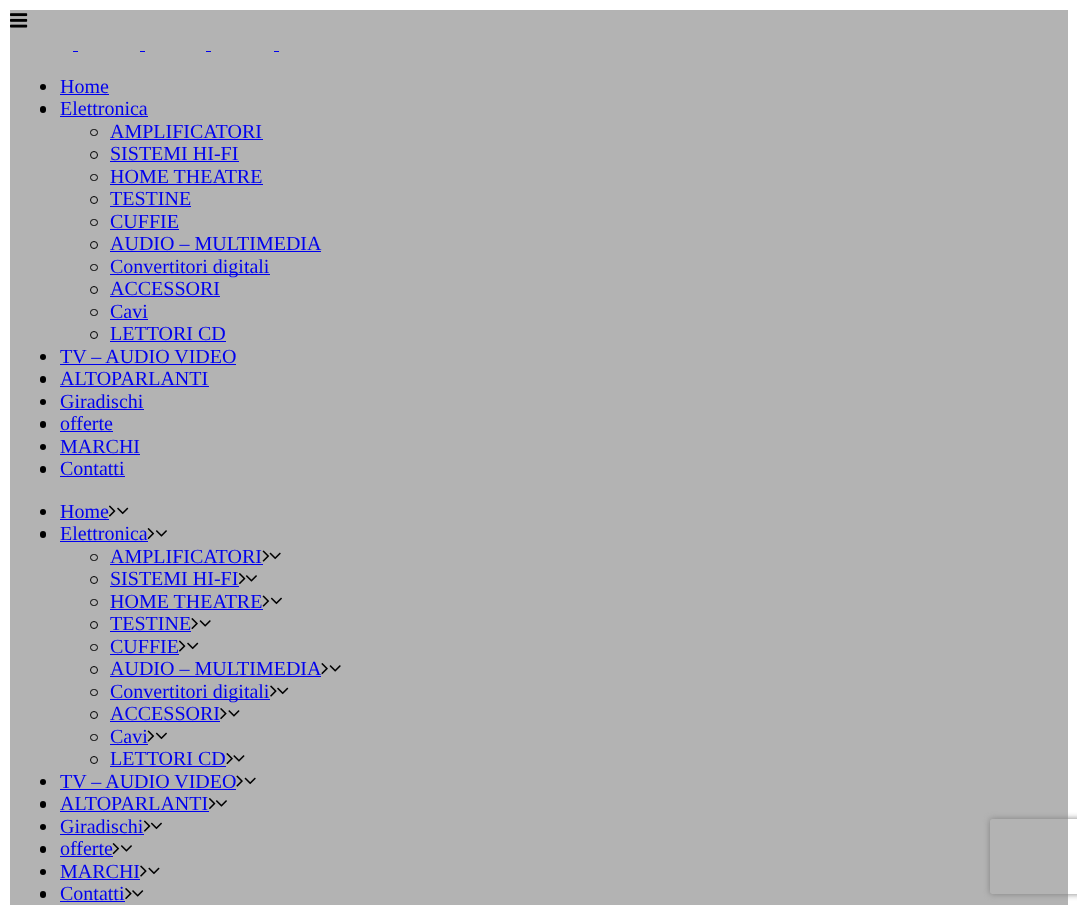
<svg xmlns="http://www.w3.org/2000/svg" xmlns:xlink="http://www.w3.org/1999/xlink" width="1077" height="911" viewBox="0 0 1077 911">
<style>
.cls-1{font:20px Liberation Serif;fill:#0000ee}
</style>
<defs>
<clipPath id="clip1"><path d="M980 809H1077V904H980ZM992.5 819H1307.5C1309 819 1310 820 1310 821.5V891.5C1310 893 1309 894 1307.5 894H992.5C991 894 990 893 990 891.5V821.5C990 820 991 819 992.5 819Z" clip-rule="evenodd"/></clipPath>
</defs>
<rect width="100%" height="100%" fill="#ffffff"/>
<rect fill="#b3b3b3" x="10" y="10" width="1058" height="895"/>
<image xlink:href="image0.png" x="10" y="13" width="18" height="15"/>
<rect fill="#0000ee" x="73" y="51" width="5" height="1"/>
<rect fill="#0000ee" x="140" y="51" width="5" height="1"/>
<rect fill="#0000ee" x="206" y="51" width="5" height="1"/>
<rect fill="#0000ee" x="274" y="51" width="5" height="1"/>
<circle fill="#000000" cx="43" cy="87" r="3"/>
<rect fill="#0000ee" x="60" y="94" width="49" height="1"/>
<rect fill="#000000" x="40" y="106" width="6" height="7" rx="3"/>
<rect fill="#0000ee" x="60" y="116" width="88" height="1"/>
<rect fill="none" stroke="#000000" x="90.5" y="129.5" width="7" height="6" rx="3"/>
<rect fill="#0000ee" x="110" y="139" width="153" height="1"/>
<circle fill="none" stroke="#000000" cx="94" cy="155" r="3.5"/>
<rect fill="#0000ee" x="110" y="161" width="129" height="1"/>
<rect fill="none" stroke="#000000" x="90.5" y="174.5" width="7" height="6" rx="3"/>
<rect fill="#0000ee" x="110" y="184" width="153" height="1"/>
<circle fill="none" stroke="#000000" cx="94" cy="200" r="3.5"/>
<rect fill="#0000ee" x="110" y="206" width="81" height="1"/>
<rect fill="none" stroke="#000000" x="90.5" y="219.5" width="7" height="6" rx="3"/>
<rect fill="#0000ee" x="110" y="229" width="69" height="1"/>
<circle fill="none" stroke="#000000" cx="94" cy="245" r="3.5"/>
<rect fill="#0000ee" x="110" y="251" width="211" height="1"/>
<rect fill="none" stroke="#000000" x="90.5" y="264.5" width="7" height="6" rx="3"/>
<rect fill="#0000ee" x="110" y="274" width="160" height="1"/>
<circle fill="none" stroke="#000000" cx="94" cy="290" r="3.5"/>
<rect fill="#0000ee" x="110" y="296" width="110" height="1"/>
<rect fill="none" stroke="#000000" x="90.5" y="309.5" width="7" height="6" rx="3"/>
<rect fill="#0000ee" x="110" y="319" width="38" height="1"/>
<circle fill="none" stroke="#000000" cx="94" cy="335" r="3.5"/>
<rect fill="#0000ee" x="110" y="341" width="116" height="1"/>
<circle fill="#000000" cx="43" cy="357" r="3"/>
<rect fill="#0000ee" x="60" y="364" width="176" height="1"/>
<rect fill="#000000" x="40" y="376" width="6" height="7" rx="3"/>
<rect fill="#0000ee" x="60" y="386" width="149" height="1"/>
<circle fill="#000000" cx="43" cy="402" r="3"/>
<rect fill="#0000ee" x="60" y="409" width="84" height="1"/>
<rect fill="#000000" x="40" y="421" width="6" height="7" rx="3"/>
<rect fill="#0000ee" x="60" y="431" width="53" height="1"/>
<circle fill="#000000" cx="43" cy="447" r="3"/>
<rect fill="#0000ee" x="60" y="454" width="80" height="1"/>
<rect fill="#000000" x="40" y="466" width="6" height="7" rx="3"/>
<rect fill="#0000ee" x="60" y="476" width="65" height="1"/>
<circle fill="#000000" cx="43" cy="512" r="3"/>
<rect fill="#0000ee" x="60" y="519" width="49" height="1"/>
<image xlink:href="image2.png" x="117" y="507" width="12" height="8"/>
<rect fill="#000000" x="40" y="531" width="6" height="7" rx="3"/>
<rect fill="#0000ee" x="60" y="541" width="88" height="1"/>
<image xlink:href="image4.png" x="155" y="530" width="12" height="7"/>
<rect fill="none" stroke="#000000" x="90.5" y="554.5" width="7" height="6" rx="3"/>
<rect fill="#0000ee" x="110" y="564" width="153" height="1"/>
<image xlink:href="image5.png" x="262" y="550" width="8" height="12"/>
<image xlink:href="image6.png" x="269" y="552" width="12" height="8"/>
<circle fill="none" stroke="#000000" cx="94" cy="580" r="3.5"/>
<rect fill="#0000ee" x="110" y="586" width="129" height="1"/>
<image xlink:href="image7.png" x="238" y="573" width="8" height="12"/>
<image xlink:href="image8.png" x="245" y="575" width="12" height="7"/>
<rect fill="none" stroke="#000000" x="90.5" y="599.5" width="7" height="6" rx="3"/>
<rect fill="#0000ee" x="110" y="609" width="153" height="1"/>
<image xlink:href="image5.png" x="262" y="595" width="8" height="12"/>
<image xlink:href="image9.png" x="270" y="597" width="12" height="8"/>
<circle fill="none" stroke="#000000" cx="94" cy="625" r="3.5"/>
<rect fill="#0000ee" x="110" y="631" width="81" height="1"/>
<image xlink:href="image10.png" x="191" y="618" width="7" height="12"/>
<image xlink:href="image11.png" x="199" y="620" width="12" height="7"/>
<rect fill="none" stroke="#000000" x="90.5" y="644.5" width="7" height="6" rx="3"/>
<rect fill="#0000ee" x="110" y="654" width="69" height="1"/>
<image xlink:href="image12.png" x="178" y="640" width="8" height="12"/>
<image xlink:href="image2.png" x="187" y="642" width="12" height="8"/>
<circle fill="none" stroke="#000000" cx="94" cy="670" r="3.5"/>
<rect fill="#0000ee" x="110" y="676" width="211" height="1"/>
<image xlink:href="image11.png" x="329" y="665" width="12" height="7"/>
<rect fill="none" stroke="#000000" x="90.5" y="689.5" width="7" height="6" rx="3"/>
<rect fill="#0000ee" x="110" y="699" width="160" height="1"/>
<image xlink:href="image14.png" x="270" y="685" width="7" height="12"/>
<image xlink:href="image2.png" x="277" y="687" width="12" height="8"/>
<circle fill="none" stroke="#000000" cx="94" cy="715" r="3.5"/>
<rect fill="#0000ee" x="110" y="721" width="110" height="1"/>
<image xlink:href="image15.png" x="220" y="708" width="7" height="12"/>
<image xlink:href="image16.png" x="228" y="710" width="12" height="7"/>
<rect fill="none" stroke="#000000" x="90.5" y="734.5" width="7" height="6" rx="3"/>
<rect fill="#0000ee" x="110" y="744" width="38" height="1"/>
<image xlink:href="image9.png" x="155" y="732" width="12" height="8"/>
<circle fill="none" stroke="#000000" cx="94" cy="760" r="3.5"/>
<rect fill="#0000ee" x="110" y="766" width="116" height="1"/>
<image xlink:href="image10.png" x="226" y="753" width="7" height="12"/>
<image xlink:href="image16.png" x="233" y="755" width="12" height="7"/>
<circle fill="#000000" cx="43" cy="782" r="3"/>
<rect fill="#0000ee" x="60" y="789" width="176" height="1"/>
<image xlink:href="image17.png" x="236" y="775" width="7" height="12"/>
<image xlink:href="image18.png" x="244" y="777" width="12" height="8"/>
<rect fill="#000000" x="40" y="801" width="6" height="7" rx="3"/>
<rect fill="#0000ee" x="60" y="811" width="149" height="1"/>
<image xlink:href="image7.png" x="208" y="798" width="8" height="12"/>
<image xlink:href="image8.png" x="215" y="800" width="12" height="7"/>
<circle fill="#000000" cx="43" cy="827" r="3"/>
<rect fill="#0000ee" x="60" y="834" width="84" height="1"/>
<image xlink:href="image12.png" x="143" y="820" width="8" height="12"/>
<image xlink:href="image19.png" x="150" y="822" width="12" height="8"/>
<rect fill="#000000" x="40" y="846" width="6" height="7" rx="3"/>
<rect fill="#0000ee" x="60" y="856" width="53" height="1"/>
<image xlink:href="image4.png" x="120" y="845" width="12" height="7"/>
<circle fill="#000000" cx="43" cy="872" r="3"/>
<rect fill="#0000ee" x="60" y="879" width="80" height="1"/>
<image xlink:href="image14.png" x="140" y="865" width="7" height="12"/>
<image xlink:href="image21.png" x="148" y="867" width="12" height="8"/>
<rect fill="#000000" x="40" y="891" width="6" height="7" rx="3"/>
<rect fill="#0000ee" x="60" y="901" width="65" height="1"/>
<image xlink:href="image15.png" x="125" y="888" width="7" height="12"/>
<image xlink:href="image22.png" x="132" y="890" width="12" height="7"/>
<g clip-path="url(#clip1)">
<rect fill="#808080" filter="blur(3px)" x="990" y="819" width="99" height="75" rx="2.5"/>
</g>
<text class="cls-1"><tspan x="60" y="93">Home</tspan><tspan x="60" y="115">Elettronica</tspan></text>
<text class="cls-1"><tspan x="110" y="138">AMPLIFICATORI</tspan><tspan x="110" y="160">SISTEMI HI-FI</tspan><tspan x="110" y="183">HOME THEATRE</tspan><tspan x="110" y="205">TESTINE</tspan><tspan x="110" y="228">CUFFIE</tspan><tspan x="110" y="250">AUDIO – MULTIMEDIA</tspan><tspan x="110" y="273">Convertitori digitali</tspan><tspan x="110" y="295">ACCESSORI</tspan><tspan x="110" y="318">Cavi</tspan><tspan x="110" y="340">LETTORI CD</tspan></text>
<text class="cls-1"><tspan x="60" y="363">TV – AUDIO VIDEO</tspan><tspan x="60" y="385">ALTOPARLANTI</tspan><tspan x="60" y="408">Giradischi</tspan><tspan x="60" y="430">offerte</tspan><tspan x="60" y="453">MARCHI</tspan><tspan x="60" y="475">Contatti</tspan></text>
<text class="cls-1" x="60" y="518">Home</text>
<image xlink:href="image1.png" x="108" y="505" width="8" height="12"/>
<text class="cls-1" x="60" y="540">Elettronica</text>
<image xlink:href="image3.png" x="147" y="528" width="8" height="12"/>
<text class="cls-1"><tspan x="110" y="563">AMPLIFICATORI</tspan><tspan x="110" y="585">SISTEMI HI-FI</tspan><tspan x="110" y="608">HOME THEATRE</tspan><tspan x="110" y="630">TESTINE</tspan><tspan x="110" y="653">CUFFIE</tspan><tspan x="110" y="675">AUDIO – MULTIMEDIA</tspan></text>
<image xlink:href="image13.png" x="321" y="663" width="7" height="12"/>
<text class="cls-1"><tspan x="110" y="698">Convertitori digitali</tspan><tspan x="110" y="720">ACCESSORI</tspan><tspan x="110" y="743">Cavi</tspan></text>
<image xlink:href="image5.png" x="147" y="730" width="8" height="12"/>
<text class="cls-1" x="110" y="765">LETTORI CD</text>
<text class="cls-1"><tspan x="60" y="788">TV – AUDIO VIDEO</tspan><tspan x="60" y="810">ALTOPARLANTI</tspan><tspan x="60" y="833">Giradischi</tspan><tspan x="60" y="855">offerte</tspan></text>
<image xlink:href="image20.png" x="112" y="843" width="8" height="12"/>
<text class="cls-1"><tspan x="60" y="878">MARCHI</tspan><tspan x="60" y="900">Contatti</tspan></text>
</svg>
